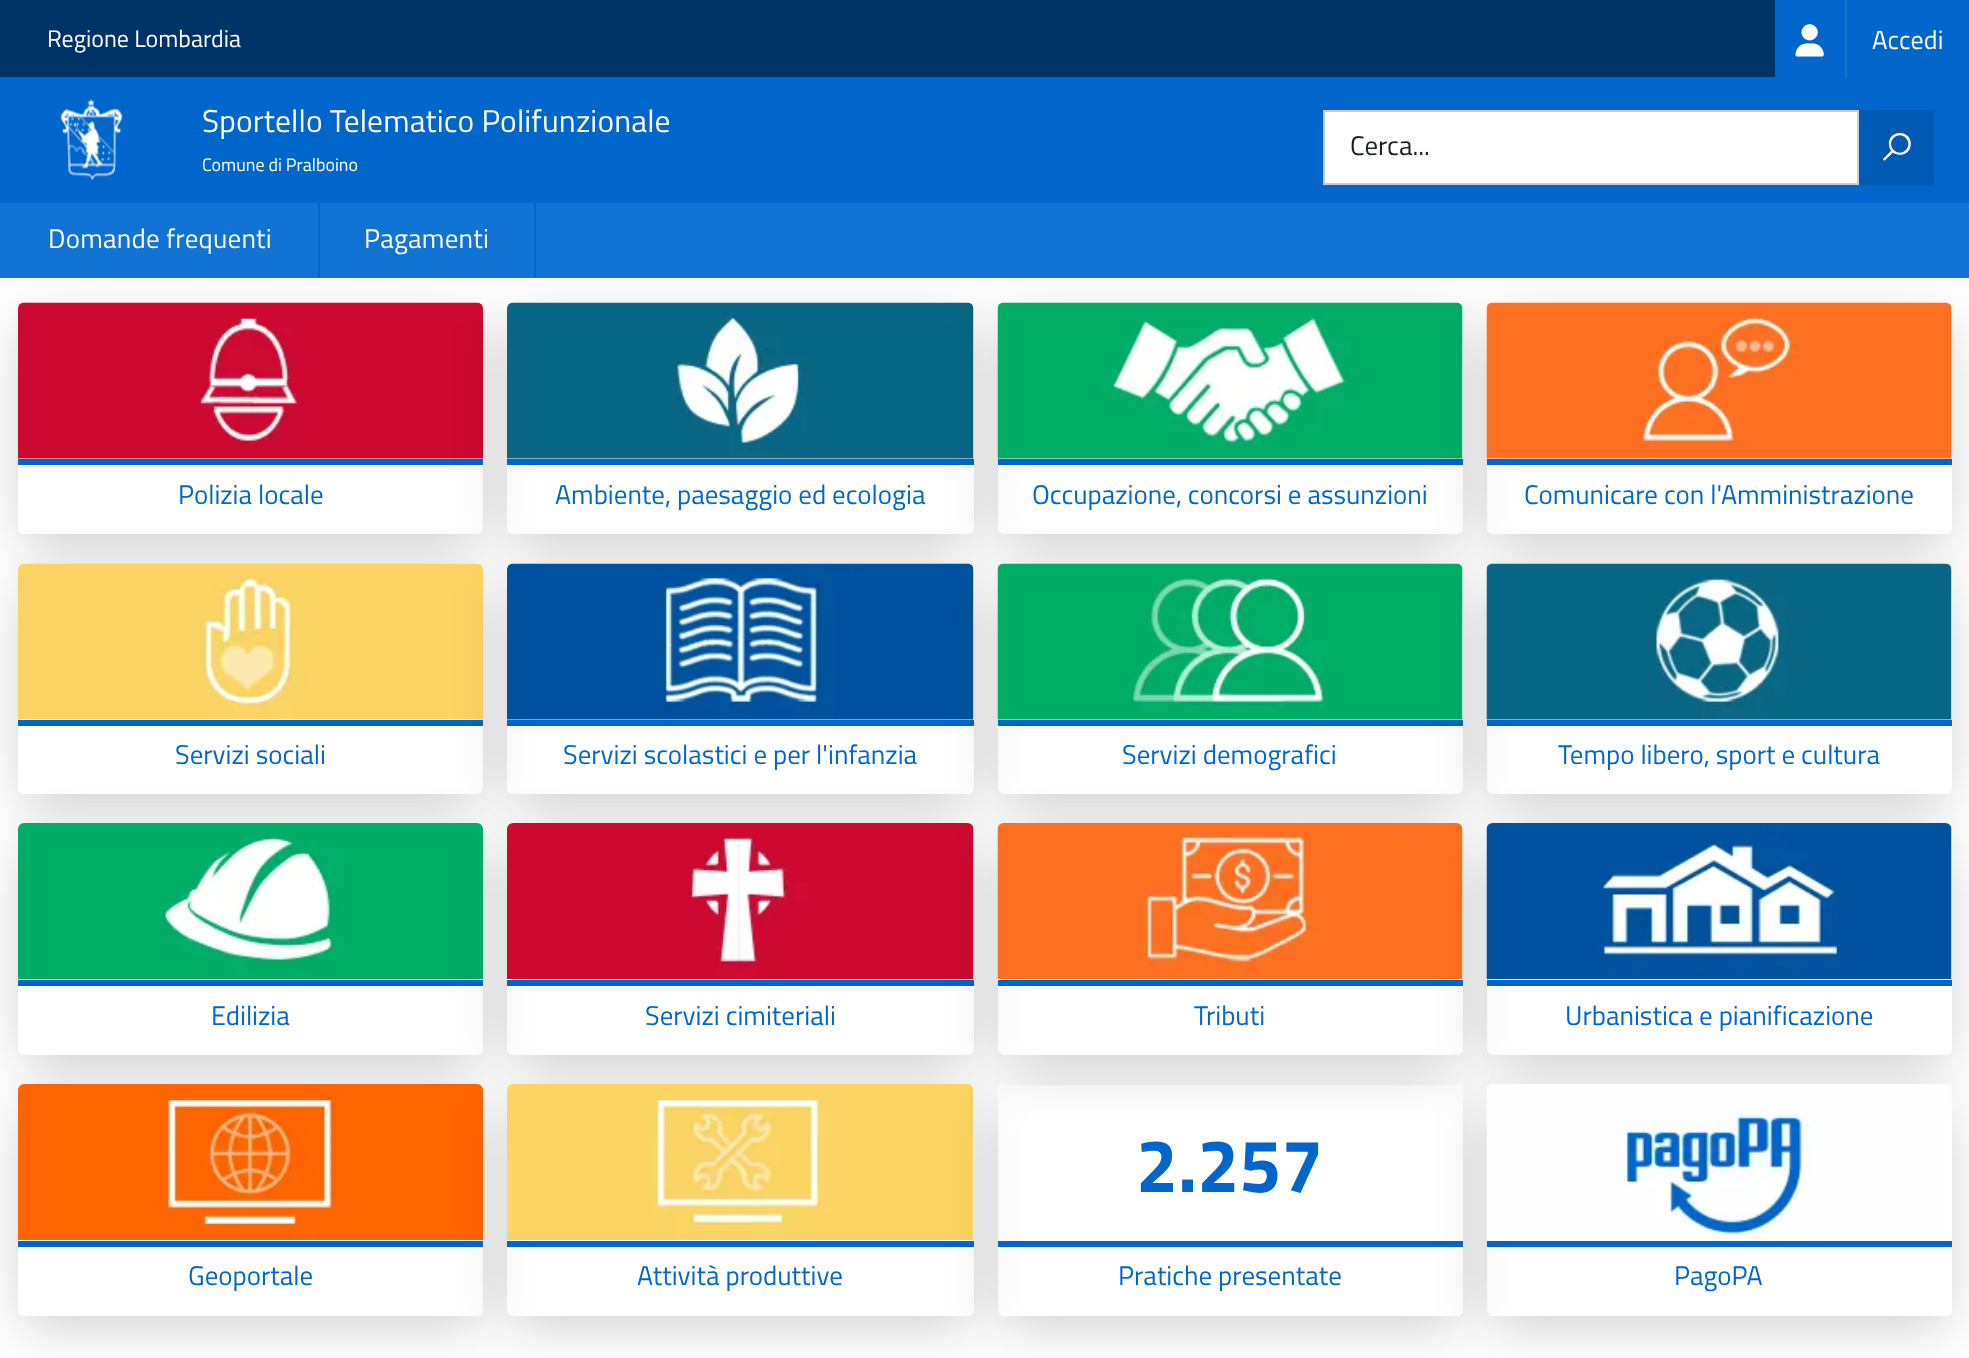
<svg xmlns="http://www.w3.org/2000/svg" xmlns:xlink="http://www.w3.org/1999/xlink" width="1969" height="1358" viewBox="0 0 1969 1358">
<style>
.cls-1{font:24px Titillium Web;fill:#ffffff}
.cls-2{font:26px Titillium Web;letter-spacing:0.25px;fill:#ffffff}
.cls-3{font:31.5px Titillium Web;letter-spacing:0.15px;fill:#ffffff}
.cls-4{font:18px Titillium Web;fill:#ffffff}
.cls-5{font:bold 27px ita;fill:#ffffff}
.cls-6{font:27px Titillium Web;fill:#1c2024}
.cls-7{font:27px Titillium Web;letter-spacing:0.25px;fill:#ffffff}
.cls-8{font:27px Titillium Web;fill:#0066cc}
.cls-9{font:bold 75px Titillium Web;fill:#0066cc}
</style>
<defs>
<clipPath id="clip1"><path d="M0 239H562V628H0ZM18 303H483V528C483 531.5 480.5 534 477 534H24C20.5 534 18 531.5 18 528Z" clip-rule="evenodd"/></clipPath>
<clipPath id="clip2"><path d="M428 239H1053V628H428ZM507 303H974V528C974 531.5 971.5 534 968 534H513C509.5 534 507 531.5 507 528Z" clip-rule="evenodd"/></clipPath>
<clipPath id="clip3"><path d="M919 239H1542V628H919ZM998 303H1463V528C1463 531.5 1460.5 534 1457 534H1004C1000.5 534 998 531.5 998 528Z" clip-rule="evenodd"/></clipPath>
<clipPath id="clip4"><path d="M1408 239H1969V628H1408ZM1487 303H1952V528C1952 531.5 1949.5 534 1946 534H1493C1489.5 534 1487 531.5 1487 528Z" clip-rule="evenodd"/></clipPath>
<clipPath id="clip5"><path d="M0 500H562V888H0ZM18 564H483V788C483 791.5 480.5 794 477 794H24C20.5 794 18 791.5 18 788Z" clip-rule="evenodd"/></clipPath>
<clipPath id="clip6"><path d="M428 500H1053V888H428ZM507 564H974V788C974 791.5 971.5 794 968 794H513C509.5 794 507 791.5 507 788Z" clip-rule="evenodd"/></clipPath>
<clipPath id="clip7"><path d="M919 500H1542V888H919ZM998 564H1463V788C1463 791.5 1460.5 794 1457 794H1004C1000.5 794 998 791.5 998 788Z" clip-rule="evenodd"/></clipPath>
<clipPath id="clip8"><path d="M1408 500H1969V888H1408ZM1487 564H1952V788C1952 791.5 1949.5 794 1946 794H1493C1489.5 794 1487 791.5 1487 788Z" clip-rule="evenodd"/></clipPath>
<clipPath id="clip9"><path d="M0 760H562V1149H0ZM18 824H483V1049C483 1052.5 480.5 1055 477 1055H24C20.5 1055 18 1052.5 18 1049Z" clip-rule="evenodd"/></clipPath>
<clipPath id="clip10"><path d="M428 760H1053V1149H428ZM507 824H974V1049C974 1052.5 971.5 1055 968 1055H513C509.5 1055 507 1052.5 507 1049Z" clip-rule="evenodd"/></clipPath>
<clipPath id="clip11"><path d="M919 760H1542V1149H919ZM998 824H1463V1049C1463 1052.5 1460.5 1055 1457 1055H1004C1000.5 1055 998 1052.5 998 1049Z" clip-rule="evenodd"/></clipPath>
<clipPath id="clip12"><path d="M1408 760H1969V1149H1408ZM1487 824H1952V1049C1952 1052.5 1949.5 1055 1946 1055H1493C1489.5 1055 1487 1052.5 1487 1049Z" clip-rule="evenodd"/></clipPath>
<clipPath id="clip13"><path d="M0 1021H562V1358H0ZM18 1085H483V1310C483 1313.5 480.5 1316 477 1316H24C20.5 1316 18 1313.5 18 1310Z" clip-rule="evenodd"/></clipPath>
<clipPath id="clip14"><path d="M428 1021H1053V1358H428ZM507 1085H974V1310C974 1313.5 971.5 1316 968 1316H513C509.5 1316 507 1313.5 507 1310Z" clip-rule="evenodd"/></clipPath>
<clipPath id="clip15"><path d="M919 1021H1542V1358H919ZM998 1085H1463V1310C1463 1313.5 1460.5 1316 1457 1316H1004C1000.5 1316 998 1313.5 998 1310Z" clip-rule="evenodd"/></clipPath>
<clipPath id="clip16"><path d="M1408 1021H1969V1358H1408ZM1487 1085H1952V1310C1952 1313.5 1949.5 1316 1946 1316H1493C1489.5 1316 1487 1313.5 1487 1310Z" clip-rule="evenodd"/></clipPath>
</defs>
<rect width="100%" height="100%" fill="#ffffff"/>
<rect fill="#003366" x="0" y="0" width="1775" height="77"/>
<rect fill="#0066cc" x="1775" y="0" width="70" height="77"/>
<rect fill="#1a75d1" x="1845" y="0" width="2" height="77"/>
<image xlink:href="image0.png" x="1795" y="24" width="29" height="33"/>
<rect fill="#0066cc" x="1847" y="0" width="122" height="77"/>
<rect fill="#0066cc" x="0" y="77" width="1969" height="126"/>
<image xlink:href="image1.png" x="60" y="98" width="63" height="82"/>
<rect fill="#ffffff" stroke="#cccccc" stroke-width="2" x="1324" y="111" width="534" height="73"/>
<rect fill="#0059b3" x="1859" y="110" width="75" height="75"/>
<g clip-path="url(#clip1)">
<rect fill="#000000" fill-opacity="0.2" filter="blur(28px)" x="24" y="324" width="453" height="219"/>
</g>
<image xlink:href="image2.png" x="18" y="302" width="465" height="157"/>
<rect fill="#0066cc" x="18" y="459" width="465" height="6"/>
<g clip-path="url(#clip2)">
<rect fill="#000000" fill-opacity="0.2" filter="blur(28px)" x="513" y="324" width="455" height="219"/>
</g>
<image xlink:href="image3.png" x="507" y="302" width="467" height="157"/>
<rect fill="#0066cc" x="507" y="459" width="467" height="6"/>
<g clip-path="url(#clip3)">
<rect fill="#000000" fill-opacity="0.2" filter="blur(28px)" x="1004" y="324" width="453" height="219"/>
</g>
<image xlink:href="image4.png" x="997" y="302" width="466" height="157"/>
<rect fill="#0066cc" x="998" y="459" width="465" height="6"/>
<g clip-path="url(#clip4)">
<rect fill="#000000" fill-opacity="0.2" filter="blur(28px)" x="1493" y="324" width="453" height="219"/>
</g>
<rect fill="#1173d4" x="0" y="203" width="1969" height="75"/>
<rect fill="#0066cc" x="318" y="203" width="2" height="75"/>
<rect fill="#0066cc" x="534" y="203" width="2" height="75"/>
<image xlink:href="image5.png" x="1486" y="302" width="466" height="157"/>
<rect fill="#0066cc" x="1487" y="459" width="465" height="6"/>
<g clip-path="url(#clip5)">
<rect fill="#000000" fill-opacity="0.2" filter="blur(28px)" x="24" y="585" width="453" height="218"/>
</g>
<image xlink:href="image6.png" x="18" y="563" width="465" height="157"/>
<rect fill="#0066cc" x="18" y="720" width="465" height="6"/>
<g clip-path="url(#clip6)">
<rect fill="#000000" fill-opacity="0.2" filter="blur(28px)" x="513" y="585" width="455" height="218"/>
</g>
<image xlink:href="image7.png" x="507" y="563" width="467" height="157"/>
<rect fill="#0066cc" x="507" y="720" width="467" height="6"/>
<g clip-path="url(#clip7)">
<rect fill="#000000" fill-opacity="0.2" filter="blur(28px)" x="1004" y="585" width="453" height="218"/>
</g>
<image xlink:href="image8.png" x="997" y="563" width="466" height="157"/>
<rect fill="#0066cc" x="998" y="720" width="465" height="6"/>
<g clip-path="url(#clip8)">
<rect fill="#000000" fill-opacity="0.2" filter="blur(28px)" x="1493" y="585" width="453" height="218"/>
</g>
<image xlink:href="image9.png" x="1486" y="563" width="466" height="157"/>
<rect fill="#0066cc" x="1487" y="720" width="465" height="6"/>
<g clip-path="url(#clip9)">
<rect fill="#000000" fill-opacity="0.2" filter="blur(28px)" x="24" y="845" width="453" height="219"/>
</g>
<image xlink:href="image10.png" x="18" y="823" width="465" height="156"/>
<rect fill="#0066cc" x="18" y="980" width="465" height="6"/>
<g clip-path="url(#clip10)">
<rect fill="#000000" fill-opacity="0.2" filter="blur(28px)" x="513" y="845" width="455" height="219"/>
</g>
<image xlink:href="image11.png" x="507" y="823" width="467" height="156"/>
<rect fill="#0066cc" x="507" y="980" width="467" height="6"/>
<g clip-path="url(#clip11)">
<rect fill="#000000" fill-opacity="0.2" filter="blur(28px)" x="1004" y="845" width="453" height="219"/>
</g>
<image xlink:href="image12.png" x="997" y="823" width="466" height="156"/>
<rect fill="#0066cc" x="998" y="980" width="465" height="6"/>
<g clip-path="url(#clip12)">
<rect fill="#000000" fill-opacity="0.2" filter="blur(28px)" x="1493" y="845" width="453" height="219"/>
</g>
<image xlink:href="image13.png" x="1486" y="823" width="466" height="156"/>
<rect fill="#0066cc" x="1487" y="980" width="465" height="6"/>
<g clip-path="url(#clip13)">
<rect fill="#000000" fill-opacity="0.2" filter="blur(28px)" x="24" y="1106" width="453" height="219"/>
</g>
<image xlink:href="image14.png" x="18" y="1084" width="465" height="156"/>
<rect fill="#0066cc" x="18" y="1241" width="465" height="6"/>
<g clip-path="url(#clip14)">
<rect fill="#000000" fill-opacity="0.2" filter="blur(28px)" x="513" y="1106" width="455" height="219"/>
</g>
<image xlink:href="image15.png" x="507" y="1084" width="467" height="156"/>
<rect fill="#0066cc" x="507" y="1241" width="467" height="6"/>
<g clip-path="url(#clip15)">
<rect fill="#000000" fill-opacity="0.2" filter="blur(28px)" x="1004" y="1106" width="453" height="219"/>
</g>
<rect fill="#0066cc" x="998" y="1241" width="465" height="6"/>
<g clip-path="url(#clip16)">
<rect fill="#000000" fill-opacity="0.2" filter="blur(28px)" x="1493" y="1106" width="453" height="219"/>
</g>
<image xlink:href="image16.png" x="1486" y="1084" width="462" height="156"/>
<rect fill="#0066cc" x="1487" y="1241" width="465" height="6"/>
<text class="cls-1" x="47" y="47">Regione Lombardia</text>
<text class="cls-2" x="1872" y="49">Accedi</text>
<text class="cls-3" x="202" y="132">Sportello Telematico Polifunzionale</text>
<text class="cls-4" x="202" y="171">Comune di Pralboino</text>
<text class="cls-5" x="1883" y="159">🔍</text>
<text class="cls-6" x="1350" y="155">Cerca...</text>
<text class="cls-7" x="48" y="248">Domande frequenti</text>
<text class="cls-7" x="364" y="248">Pagamenti</text>
<text class="cls-8" x="178" y="504">Polizia locale</text>
<text class="cls-8" x="555" y="504">Ambiente, paesaggio ed ecologia</text>
<text class="cls-8" x="1032" y="504">Occupazione, concorsi e assunzioni</text>
<text class="cls-8" x="1524" y="504">Comunicare con l'Amministrazione</text>
<text class="cls-8" x="175" y="764">Servizi sociali</text>
<text class="cls-8" x="563" y="764">Servizi scolastici e per l'infanzia</text>
<text class="cls-8" x="1122" y="764">Servizi demografici</text>
<text class="cls-8" x="1558" y="764">Tempo libero, sport e cultura</text>
<text class="cls-8" x="211" y="1025">Edilizia</text>
<text class="cls-8" x="645" y="1025">Servizi cimiteriali</text>
<text class="cls-8" x="1194" y="1025">Tributi</text>
<text class="cls-8" x="1565" y="1025">Urbanistica e pianificazione</text>
<text class="cls-8" x="188" y="1285">Geoportale</text>
<text class="cls-8" x="637" y="1285">Attività produttive</text>
<text class="cls-9" x="1136" y="1192">2.257</text>
<text class="cls-8" x="1118" y="1285">Pratiche presentate</text>
<text class="cls-8" x="1674" y="1285">PagoPA</text>
</svg>
